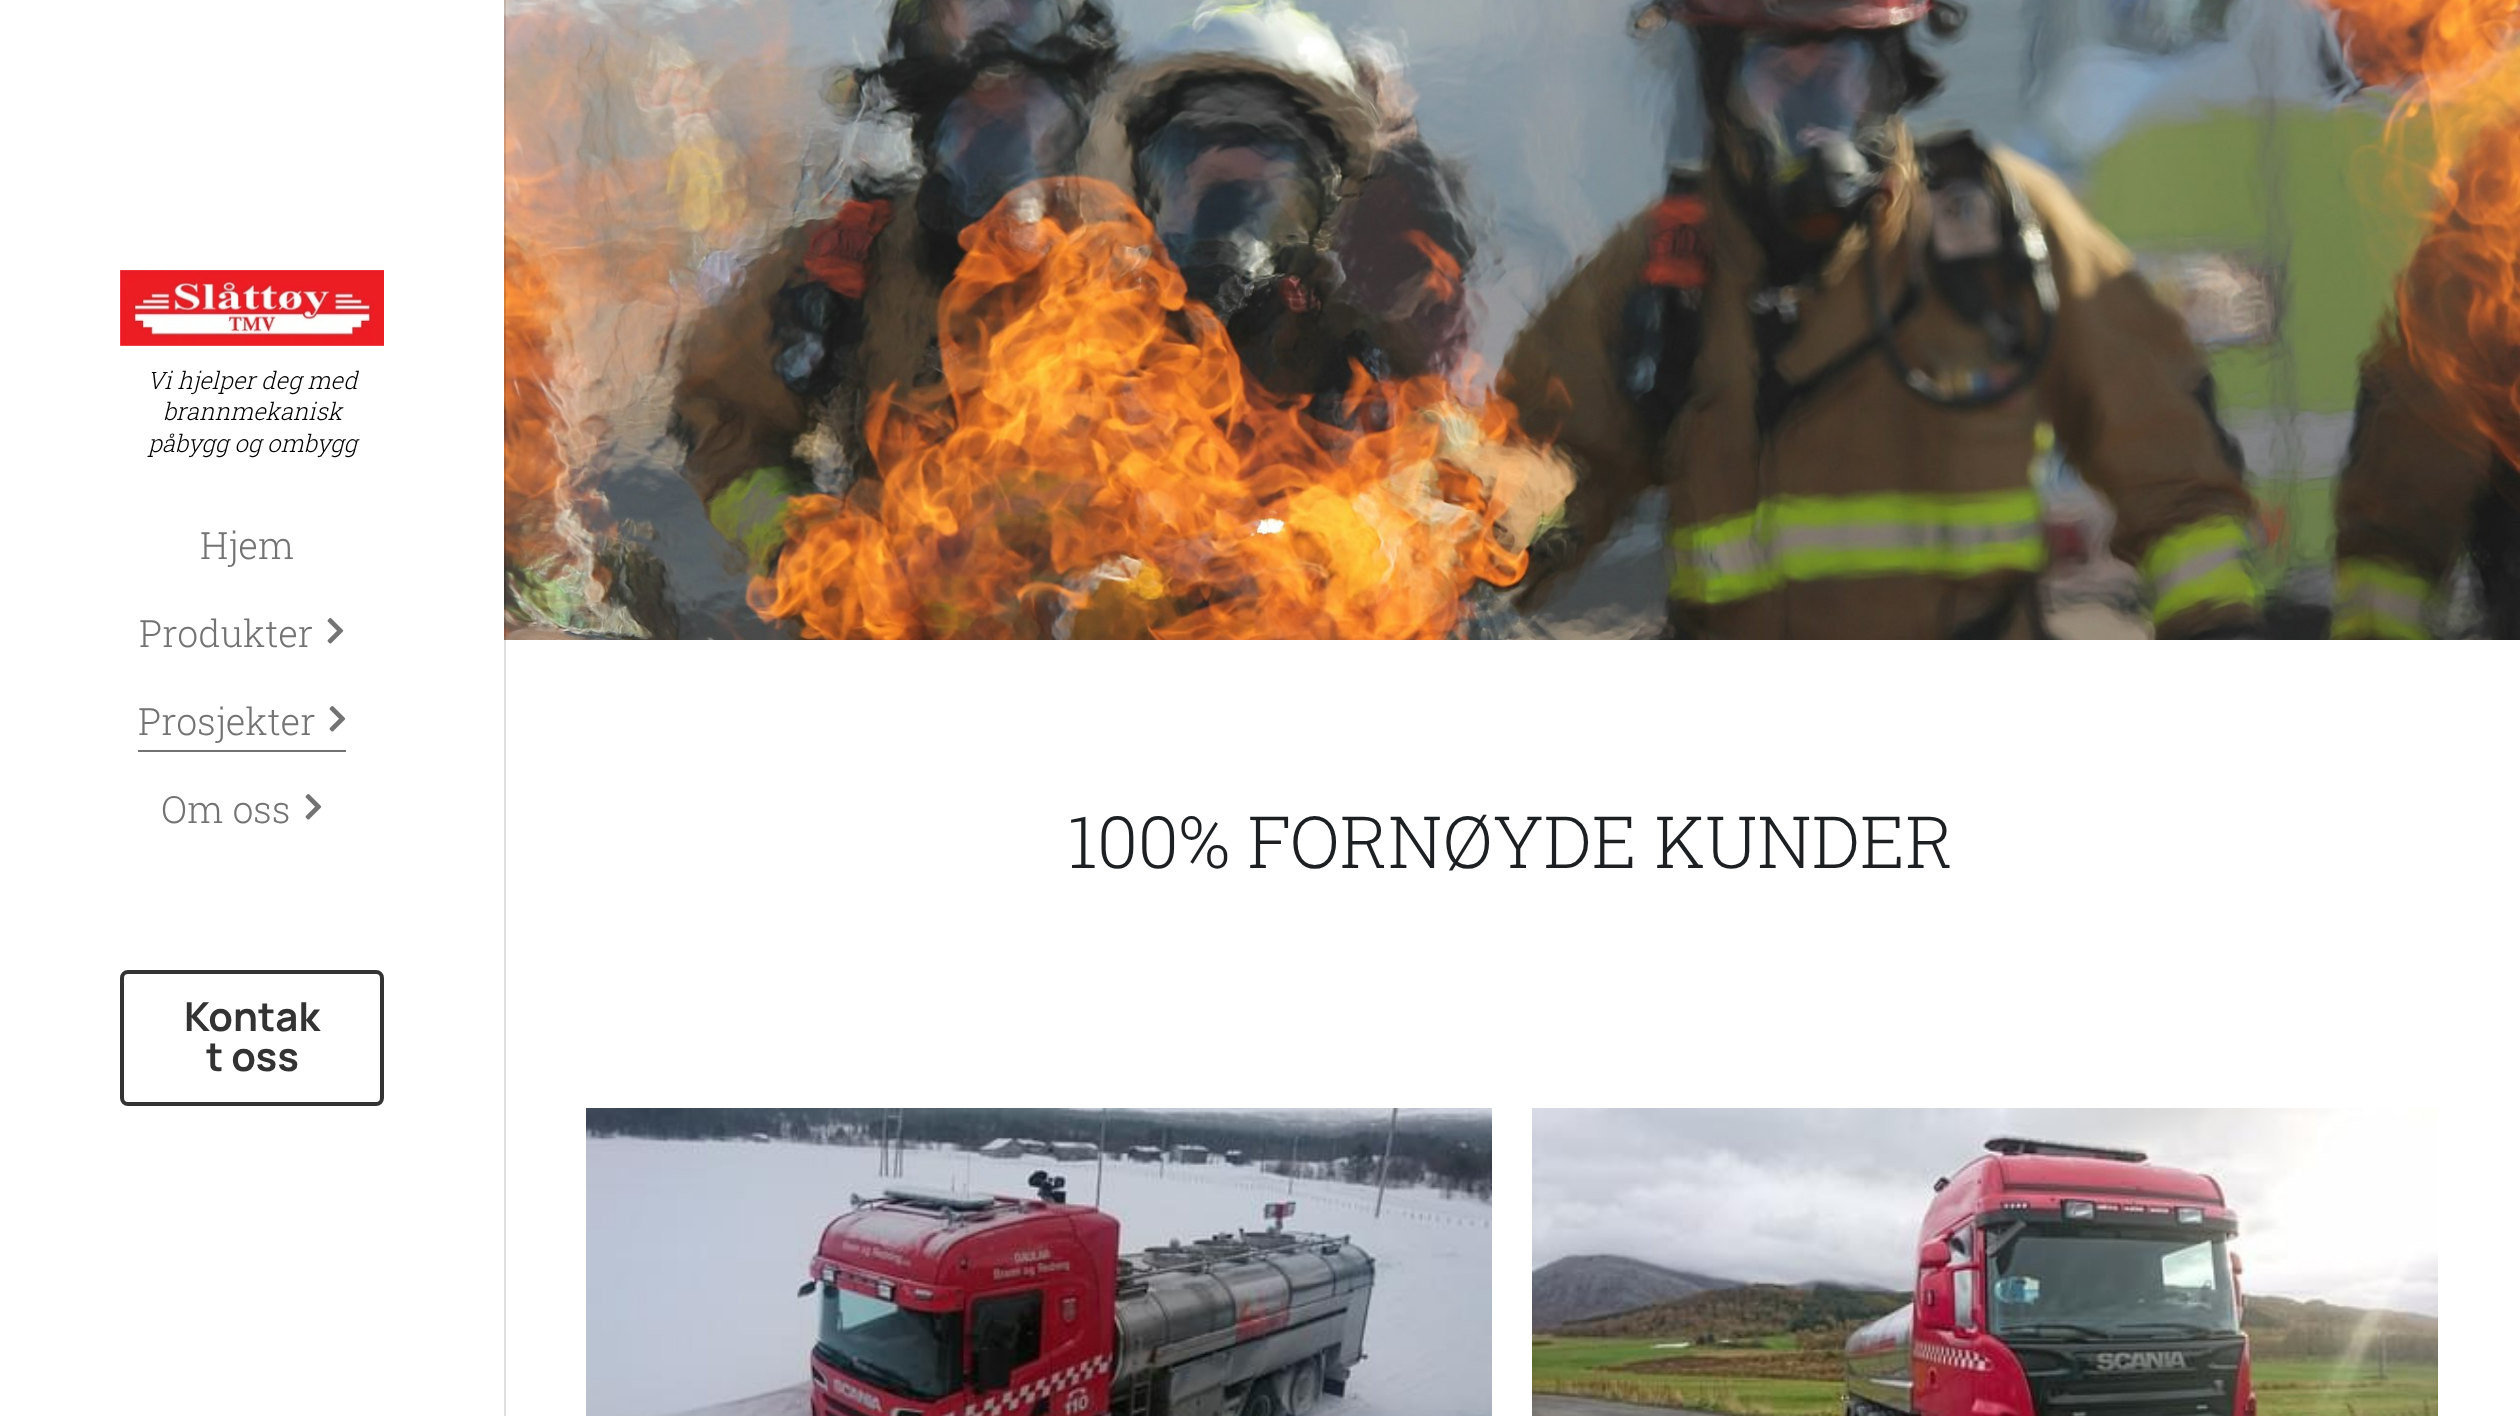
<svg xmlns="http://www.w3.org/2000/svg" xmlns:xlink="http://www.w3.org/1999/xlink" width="2520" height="1416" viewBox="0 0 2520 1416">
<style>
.cls-1{font:italic 300 24px Roboto Slab;fill:#000000}
.cls-2{font:300 37.5px Roboto Slab;fill:#737373}
.cls-3{font:bold 40px Manrope;fill:#333333}
.cls-4{font:300 72px Roboto Slab;fill:#1d2023}
</style>
<rect width="100%" height="100%" fill="#ffffff"/>
<image xlink:href="image2.png" x="504" y="0" width="2016" height="640"/>
<rect fill="#000000" fill-opacity="0.12" x="504" y="0" width="2" height="1416"/>
<image xlink:href="image0.png" x="120" y="270" width="264" height="76"/>
<image xlink:href="image1.png" x="327" y="618" width="17" height="26"/>
<rect fill="#737373" x="138" y="750" width="208" height="2"/>
<image xlink:href="image1.png" x="329" y="706" width="17" height="26"/>
<image xlink:href="image1.png" x="305" y="794" width="17" height="26"/>
<rect fill="none" stroke="#333333" stroke-width="4" x="122" y="972" width="260" height="132" rx="6"/>
<image xlink:href="image3.png" x="586" y="1108" width="906" height="308"/>
<image xlink:href="image4.png" x="1532" y="1108" width="906" height="308"/>
<text class="cls-1" x="147" y="389">Vi hjelper deg med</text>
<text class="cls-1" x="163" y="420">brannmekanisk</text>
<text class="cls-1" x="148" y="452">påbygg og ombygg</text>
<text class="cls-2" x="200" y="559">Hjem</text>
<text class="cls-2" x="139" y="647">Produkter</text>
<text class="cls-2" x="138" y="735">Prosjekter</text>
<text class="cls-2" x="161" y="823">Om oss</text>
<text class="cls-3" x="184" y="1031">Kontak</text>
<text class="cls-3" x="206" y="1071">t oss</text>
<text class="cls-4" x="1068" y="868">100% FORNØYDE KUNDER</text>
</svg>
